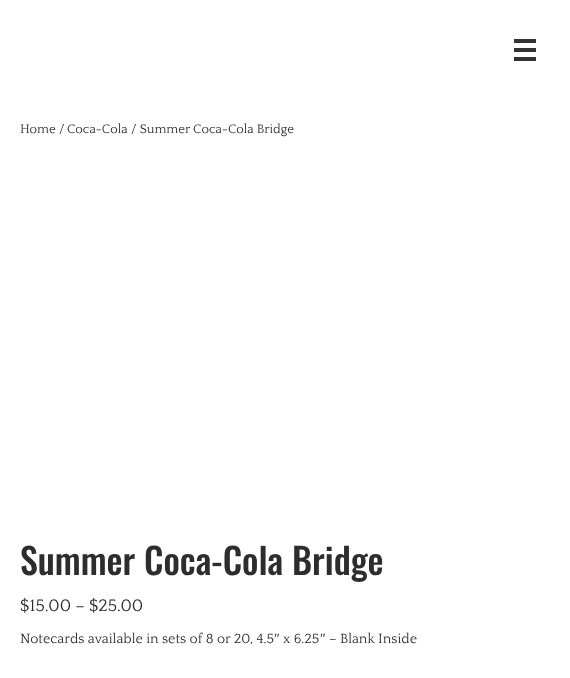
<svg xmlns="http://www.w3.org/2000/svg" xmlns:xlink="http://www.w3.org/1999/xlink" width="570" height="678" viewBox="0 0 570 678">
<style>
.cls-1{font:12.9px Quattrocento;fill:#2d2d2d}
.cls-2{font:500 36px Oswald;fill:#2d2d2d}
.cls-3{font:17.5px Quattrocento;fill:#2d2d2d}
.cls-4{font:14px Quattrocento;fill:#2d2d2d}
.cls-5{font:14px Liberation Serif;fill:#2d2d2d}
</style>
<rect width="100%" height="100%" fill="#ffffff"/>
<rect fill="#333333" x="514" y="39" width="22" height="4"/>
<rect fill="#333333" x="514" y="48" width="22" height="4"/>
<rect fill="#333333" x="514" y="57" width="22" height="4"/>
<text class="cls-1" x="20" y="133">Home</text>
<text class="cls-1" x="59" y="133">/</text>
<text class="cls-1" x="67" y="133">Coca-Cola</text>
<text class="cls-1" x="131" y="133">/ Summer Coca-Cola Bridge</text>
<text class="cls-2" x="20" y="575">Summer Coca-Cola Bridge</text>
<text class="cls-3" x="20" y="611">$15.00 – $25.00</text>
<text class="cls-4" x="20" y="643">Notecards available in sets of 8 or 20, 4.5</text>
<text class="cls-5" x="274" y="643">″</text>
<text class="cls-4" x="283" y="643">x 6.25</text>
<text class="cls-5" x="320" y="643">″</text>
<text class="cls-4" x="329" y="643">– Blank Inside</text>
</svg>
